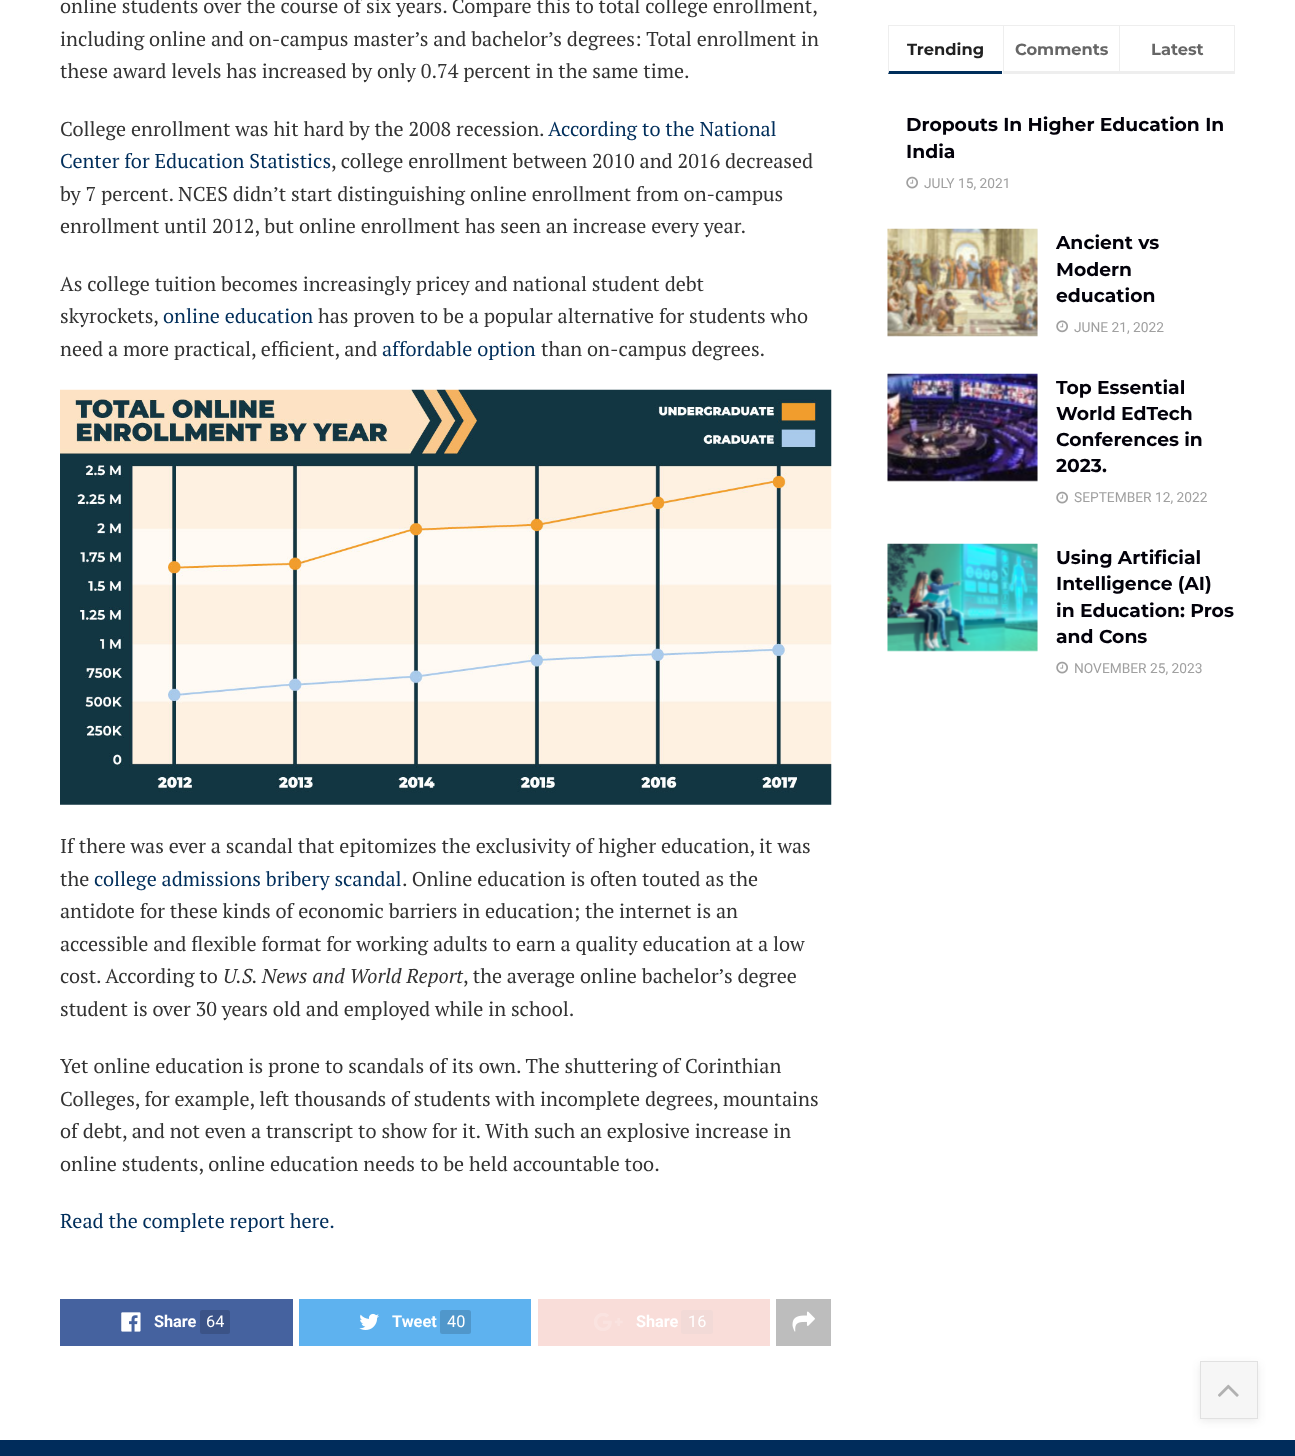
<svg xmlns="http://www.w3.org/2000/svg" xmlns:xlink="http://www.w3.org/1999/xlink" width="1295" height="1456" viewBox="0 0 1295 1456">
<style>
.cls-1{font:20px PT Serif;fill:#333333}
.cls-2{font:20px PT Serif;fill:#002e5b}
.cls-3{font:italic 20px PT Serif;fill:#333333}
.cls-4{font:bold 16.25px Roboto;fill:#ffffff}
.cls-5{font:16.25px Roboto;fill:#ffffff}
.cls-6{font:bold 16.25px Montserrat;fill:#212121}
.cls-7{font:bold 16.25px Montserrat;fill:#666666}
.cls-8{font:bold 18.75px Montserrat;fill:#02010a}
.cls-9{font:13.75px Roboto;fill:#a0a0a0}
</style>
<defs>
<clipPath id="clip1"><path d="M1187 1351H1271V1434H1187ZM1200 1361H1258V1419H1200Z" clip-rule="evenodd"/></clipPath>
</defs>
<rect width="100%" height="100%" fill="#ffffff"/>
<image xlink:href="image0.png" x="60" y="389" width="772" height="416"/>
<rect fill="#45629f" x="60" y="1299" width="233" height="47"/>
<image xlink:href="image1.png" x="121" y="1312" width="20" height="20"/>
<rect fill="#3b5387" x="200" y="1310" width="30" height="24" rx="2.5"/>
<rect fill="#5eb2ef" x="299" y="1299" width="232" height="47"/>
<image xlink:href="image2.png" x="359" y="1313" width="20" height="17"/>
<rect fill="#5097cb" x="440" y="1310" width="31" height="24" rx="2.5"/>
<rect fill="#f9ddd9" x="538" y="1299" width="232" height="47"/>
<image xlink:href="image3.png" x="594" y="1313" width="29" height="18"/>
<rect fill="#f2dad7" x="681" y="1310" width="32" height="24" rx="2.5"/>
<rect fill="#bdbdbd" x="776" y="1299" width="55" height="47"/>
<image xlink:href="image4.png" x="792" y="1311" width="23" height="21"/>
<rect fill="#eeeeee" x="888" y="25" width="347" height="1"/>
<path fill="#002e5b" d="M1002 74H888L889 71H1002Z"/>
<path fill="#eeeeee" d="M888 74V25L889 26V71Z"/>
<rect fill="#eeeeee" x="1003" y="71" width="116" height="3"/>
<rect fill="#eeeeee" x="1003" y="25" width="1" height="49"/>
<rect fill="#eeeeee" x="1234" y="25" width="1" height="49"/>
<rect fill="#eeeeee" x="1119" y="71" width="116" height="3"/>
<rect fill="#eeeeee" x="1119" y="25" width="1" height="49"/>
<image xlink:href="image5.png" x="906" y="176" width="12" height="13"/>
<rect fill="#f7f7f7" x="888" y="229" width="150" height="107"/>
<image xlink:href="image7.png" x="887" y="229" width="1" height="107"/>
<image xlink:href="image6.png" x="887" y="228" width="151" height="109"/>
<image xlink:href="image8.png" x="1056" y="320" width="12" height="13"/>
<rect fill="#f7f7f7" x="888" y="374" width="150" height="107"/>
<image xlink:href="image7.png" x="887" y="374" width="1" height="107"/>
<image xlink:href="image9.png" x="887" y="373" width="151" height="109"/>
<image xlink:href="image5.png" x="1056" y="491" width="12" height="13"/>
<rect fill="#f7f7f7" x="888" y="544" width="150" height="107"/>
<image xlink:href="image7.png" x="887" y="544" width="1" height="107"/>
<image xlink:href="image10.png" x="887" y="543" width="151" height="109"/>
<image xlink:href="image5.png" x="1056" y="661" width="12" height="13"/>
<g clip-path="url(#clip1)">
<rect fill="#333333" fill-opacity="0.1" filter="blur(4px)" x="1200" y="1364" width="58" height="57"/>
</g>
<rect fill="#c4c4c4" fill-opacity="0.15" x="1200" y="1361" width="58" height="58"/>
<rect fill="none" stroke="#333333" stroke-opacity="0.11" x="1200.5" y="1361.5" width="57" height="57"/>
<image xlink:href="image11.png" x="1218" y="1384" width="21" height="13"/>
<rect fill="#002c5b" x="0" y="1440" width="1295" height="16"/>
<text class="cls-1"><tspan x="60" y="13">online students over the course of six years. Compare this to total college enrollment,</tspan><tspan x="60" y="46">including online and on-campus master’s and bachelor’s degrees: Total enrollment in</tspan><tspan x="60" y="78">these award levels has increased by only 0.74 percent in the same time.</tspan></text>
<text class="cls-1" x="60" y="136">College enrollment was hit hard by the 2008 recession.</text>
<text class="cls-2" x="548" y="136">According to the National</text>
<text class="cls-2" x="60" y="168">Center for Education Statistics</text>
<text class="cls-1" x="331" y="168">, college enrollment between 2010 and 2016 decreased</text>
<text class="cls-1"><tspan x="60" y="201">by 7 percent. NCES didn’t start distinguishing online enrollment from on-campus</tspan><tspan x="60" y="233">enrollment until 2012, but online enrollment has seen an increase every year.</tspan></text>
<text class="cls-1"><tspan x="60" y="291">As college tuition becomes increasingly pricey and national student debt</tspan><tspan x="60" y="323">skyrockets,</tspan></text>
<text class="cls-2" x="163" y="323">online education</text>
<text class="cls-1" x="318" y="323">has proven to be a popular alternative for students who</text>
<text class="cls-1" x="60" y="356">need a more practical, efficient, and</text>
<text class="cls-2" x="382" y="356">affordable option</text>
<text class="cls-1" x="541" y="356">than on-campus degrees.</text>
<text class="cls-1"><tspan x="60" y="853">If there was ever a scandal that epitomizes the exclusivity of higher education, it was</tspan><tspan x="60" y="886">the</tspan></text>
<text class="cls-2" x="94" y="886">college admissions bribery scandal</text>
<text class="cls-1" x="402" y="886">. Online education is often touted as the</text>
<text class="cls-1"><tspan x="60" y="918">antidote for these kinds of economic barriers in education; the internet is an</tspan><tspan x="60" y="951">accessible and flexible format for working adults to earn a quality education at a low</tspan><tspan x="60" y="983">cost. According to</tspan></text>
<text class="cls-3" x="223" y="983">U.S. News and World Report</text>
<text class="cls-1" x="463" y="983">, the average online bachelor’s degree</text>
<text class="cls-1" x="60" y="1016">student is over 30 years old and employed while in school.</text>
<text class="cls-1"><tspan x="60" y="1073">Yet online education is prone to scandals of its own. The shuttering of Corinthian</tspan><tspan x="60" y="1106">Colleges, for example, left thousands of students with incomplete degrees, mountains</tspan><tspan x="60" y="1138">of debt, and not even a transcript to show for it. With such an explosive increase in</tspan><tspan x="60" y="1171">online students, online education needs to be held accountable too.</tspan></text>
<text class="cls-2" x="60" y="1228">Read the complete report here.</text>
<text class="cls-4" x="154" y="1327">Share</text>
<text class="cls-5" x="206" y="1327">64</text>
<text class="cls-4" x="392" y="1327">Tweet</text>
<text class="cls-5" x="447" y="1327">40</text>
<text class="cls-4" x="636" y="1327">Share</text>
<text class="cls-5" x="688" y="1327">16</text>
<text class="cls-6" x="907" y="55">Trending</text>
<text class="cls-7" x="1015" y="55">Comments</text>
<text class="cls-7" x="1151" y="55">Latest</text>
<text class="cls-8"><tspan x="906" y="131">Dropouts In Higher Education In</tspan><tspan x="906" y="158">India</tspan></text>
<text class="cls-9" x="924" y="188">JULY 15, 2021</text>
<text class="cls-8"><tspan x="1056" y="249">Ancient vs</tspan><tspan x="1056" y="276">Modern</tspan><tspan x="1056" y="302">education</tspan></text>
<text class="cls-9" x="1074" y="332">JUNE 21, 2022</text>
<text class="cls-8"><tspan x="1056" y="394">Top Essential</tspan><tspan x="1056" y="420">World EdTech</tspan><tspan x="1056" y="446">Conferences in</tspan><tspan x="1056" y="472">2023.</tspan></text>
<text class="cls-9" x="1074" y="502">SEPTEMBER 12, 2022</text>
<text class="cls-8"><tspan x="1056" y="564">Using Artificial</tspan><tspan x="1056" y="590">Intelligence (AI)</tspan><tspan x="1056" y="617">in Education: Pros</tspan><tspan x="1056" y="643">and Cons</tspan></text>
<text class="cls-9" x="1074" y="673">NOVEMBER 25, 2023</text>
</svg>
